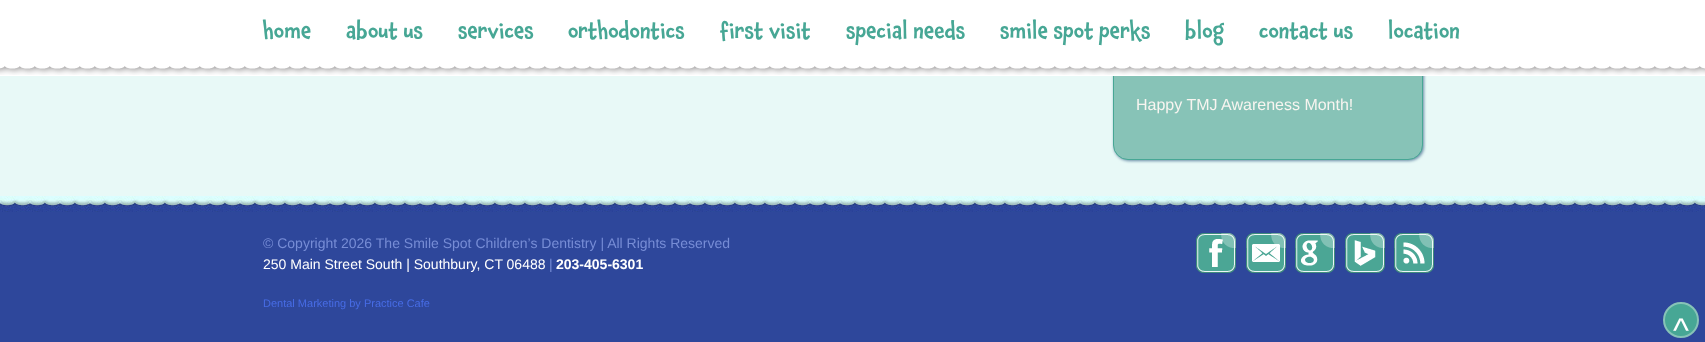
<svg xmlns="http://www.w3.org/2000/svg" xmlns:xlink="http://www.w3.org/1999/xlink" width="1705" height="342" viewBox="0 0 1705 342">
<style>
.cls-1{font:500 21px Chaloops;fill:#47a795}
.cls-2{font:16px Liberation Sans;fill:#f8f5f0}
.cls-3{font:14px Liberation Sans;fill:#778dd6}
.cls-4{font:14px Liberation Sans;fill:#ffffff}
.cls-5{font:bold 14px Liberation Sans;fill:#ffffff}
.cls-6{font:11px Liberation Sans;fill:#476ce5}
.cls-7{font:34px Liberation Sans;fill:#ffffff}
</style>
<rect width="100%" height="100%" fill="#e8f9f7"/>
<rect fill="#668aa4" filter="blur(1.5px)" x="1114" y="-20" width="310" height="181" rx="15"/>
<rect fill="#87c3b7" stroke="#47a795" x="1113.5" y="-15.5" width="309" height="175" rx="14.5"/>
<rect fill="#ffffff" x="0" y="0" width="1705" height="76"/>
<image xlink:href="image0.png" x="0" y="66" width="1705" height="9"/>
<rect fill="#2e479b" x="0" y="216" width="1705" height="126"/>
<image xlink:href="image1.png" x="0" y="196" width="1705" height="20"/>
<image xlink:href="image2.png" x="1196" y="233" width="40" height="40"/>
<image xlink:href="image3.png" x="1246" y="233" width="40" height="40"/>
<image xlink:href="image4.png" x="1295" y="233" width="40" height="40"/>
<image xlink:href="image5.png" x="1345" y="233" width="40" height="40"/>
<image xlink:href="image6.png" x="1394" y="233" width="40" height="40"/>
<circle fill="#47a795" stroke="#87c3b7" stroke-width="2" cx="1681" cy="320" r="17"/>
<text class="cls-1" x="263" y="38">home</text>
<text class="cls-1" x="346" y="38">about us</text>
<text class="cls-1" x="458" y="38">services</text>
<text class="cls-1" x="568" y="38">orthodontics</text>
<text class="cls-1" x="720" y="38">first visit</text>
<text class="cls-1" x="846" y="38">special needs</text>
<text class="cls-1" x="1000" y="38">smile spot perks</text>
<text class="cls-1" x="1185" y="38">blog</text>
<text class="cls-1" x="1259" y="38">contact us</text>
<text class="cls-1" x="1388" y="38">location</text>
<text class="cls-2" x="1136" y="110">Happy TMJ Awareness Month!</text>
<text class="cls-3" x="263" y="248">© Copyright 2026 The Smile Spot Children’s Dentistry | All Rights Reserved</text>
<text class="cls-4" x="263" y="269">250 Main Street South | Southbury, CT 06488</text>
<text class="cls-3" x="549" y="269">|</text>
<text class="cls-5" x="556" y="269">203-405-6301</text>
<text class="cls-6" x="263" y="307">Dental Marketing by Practice Cafe</text>
<text class="cls-7" x="1673" y="342">^</text>
</svg>
